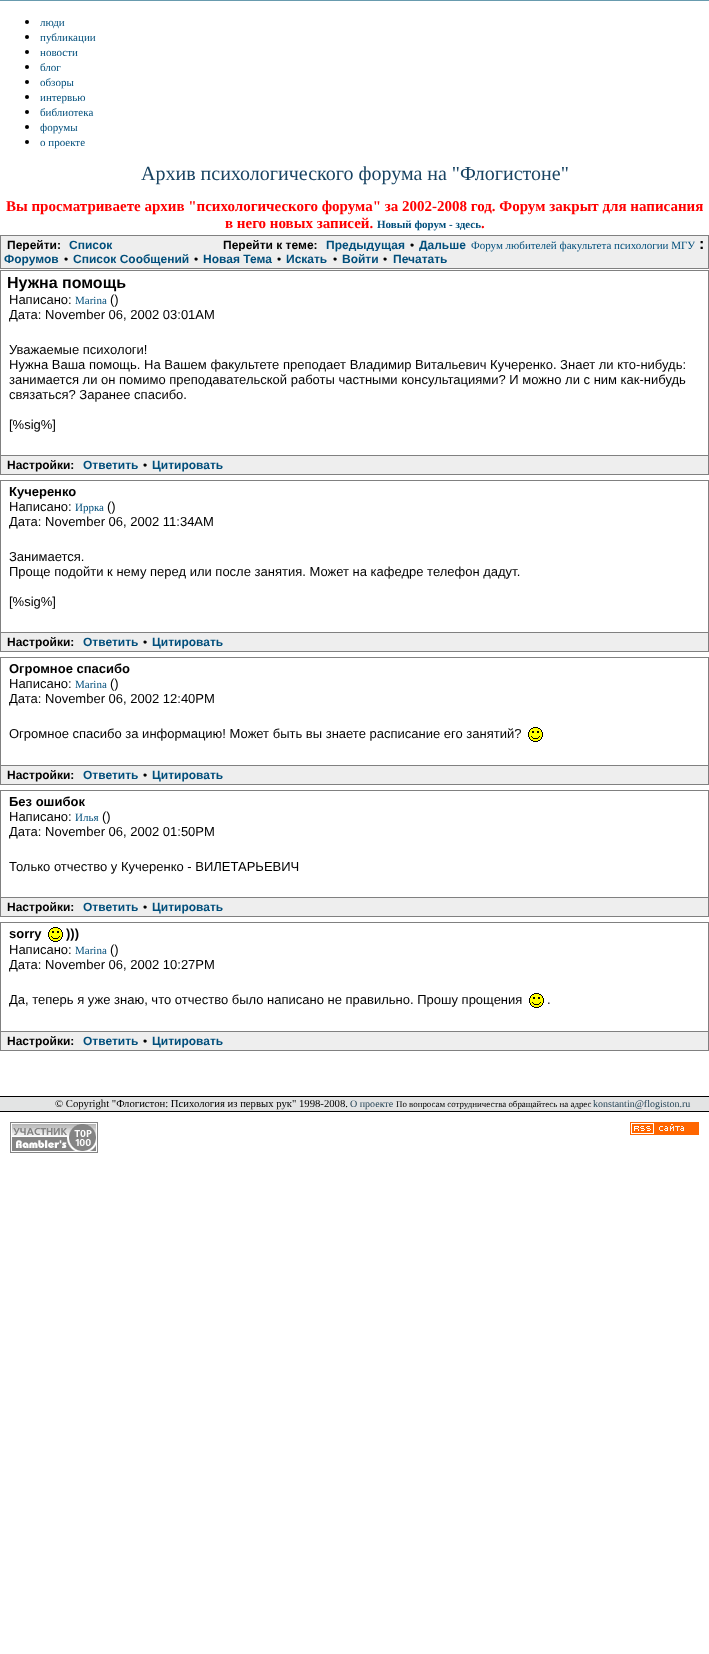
<svg xmlns="http://www.w3.org/2000/svg" xmlns:xlink="http://www.w3.org/1999/xlink" width="709" height="1654" viewBox="0 0 709 1654">
<style>
.cls-1{font:11px Liberation Serif;fill:#004e7b}
.cls-2{font:20px Liberation Serif;fill:#184362}
.cls-3{font:bold 15px Liberation Serif;fill:#ff0000}
.cls-4{font:bold 11px Liberation Serif;fill:#004e7b}
.cls-5{font:bold 12px Liberation Sans;fill:#000000}
.cls-6{font:bold 12px Liberation Sans;fill:#004e7b}
.cls-7{font:12px Liberation Sans;fill:#000000}
.cls-8{font:bold 16px Liberation Sans;fill:#000000}
.cls-9{font:13px Liberation Sans;fill:#000000}
.cls-10{font:bold 13px Liberation Sans;fill:#000000}
.cls-11{font:10.7px Liberation Serif;fill:#000000}
.cls-12{font:10px Liberation Serif;fill:#1a3b4e}
.cls-13{font:8.9px Liberation Serif;fill:#000000}
</style>
<rect width="100%" height="100%" fill="#ffffff"/>
<rect fill="#689bae" x="0" y="0" width="709" height="1"/>
<circle fill="#000000" cx="27" cy="22" r="2"/>
<circle fill="#000000" cx="27" cy="37" r="2"/>
<circle fill="#000000" cx="27" cy="52" r="2"/>
<circle fill="#000000" cx="27" cy="67" r="2"/>
<circle fill="#000000" cx="27" cy="82" r="2"/>
<circle fill="#000000" cx="27" cy="97" r="2"/>
<circle fill="#000000" cx="27" cy="112" r="2"/>
<circle fill="#000000" cx="27" cy="127" r="2"/>
<circle fill="#000000" cx="27" cy="142" r="2"/>
<rect fill="#eeeeee" stroke="#808080" x="0.5" y="235.5" width="708" height="33"/>
<rect fill="none" stroke="#808080" x="0.5" y="270.5" width="708" height="185"/>
<rect fill="#eeeeee" x="1" y="456" width="707" height="18"/>
<rect fill="#808080" x="708" y="456" width="1" height="19"/>
<rect fill="#808080" x="0" y="474" width="709" height="1"/>
<rect fill="#808080" x="0" y="456" width="1" height="19"/>
<rect fill="none" stroke="#808080" x="0.5" y="480.5" width="708" height="152"/>
<rect fill="#eeeeee" x="1" y="633" width="707" height="18"/>
<rect fill="#808080" x="708" y="633" width="1" height="19"/>
<rect fill="#808080" x="0" y="651" width="709" height="1"/>
<rect fill="#808080" x="0" y="633" width="1" height="19"/>
<rect fill="none" stroke="#808080" x="0.5" y="657.5" width="708" height="108"/>
<image xlink:href="image0.png" x="528" y="727" width="15" height="15"/>
<rect fill="#eeeeee" x="1" y="766" width="707" height="18"/>
<rect fill="#808080" x="708" y="766" width="1" height="19"/>
<rect fill="#808080" x="0" y="784" width="709" height="1"/>
<rect fill="#808080" x="0" y="766" width="1" height="19"/>
<rect fill="none" stroke="#808080" x="0.5" y="790.5" width="708" height="107"/>
<rect fill="#eeeeee" x="1" y="898" width="707" height="18"/>
<rect fill="#808080" x="708" y="898" width="1" height="19"/>
<rect fill="#808080" x="0" y="916" width="709" height="1"/>
<rect fill="#808080" x="0" y="898" width="1" height="19"/>
<rect fill="none" stroke="#808080" x="0.5" y="922.5" width="708" height="109"/>
<image xlink:href="image0.png" x="48" y="927" width="15" height="15"/>
<image xlink:href="image0.png" x="529" y="993" width="15" height="15"/>
<rect fill="#eeeeee" x="1" y="1032" width="707" height="18"/>
<rect fill="#808080" x="708" y="1032" width="1" height="19"/>
<rect fill="#808080" x="0" y="1050" width="709" height="1"/>
<rect fill="#808080" x="0" y="1032" width="1" height="19"/>
<rect fill="#e3e4e4" x="0" y="1097" width="709" height="14"/>
<rect fill="#000000" x="0" y="1096" width="709" height="1"/>
<rect fill="#000000" x="0" y="1111" width="709" height="1"/>
<image xlink:href="image1.png" x="10" y="1122" width="88" height="31"/>
<image xlink:href="image2.png" x="630" y="1122" width="69" height="13"/>
<text class="cls-1"><tspan x="40" y="26">люди</tspan><tspan x="40" y="41">публикации</tspan><tspan x="40" y="56">новости</tspan><tspan x="40" y="71">блог</tspan><tspan x="40" y="86">обзоры</tspan><tspan x="40" y="101">интервью</tspan><tspan x="40" y="116">библиотека</tspan><tspan x="40" y="131">форумы</tspan><tspan x="40" y="146">о проекте</tspan></text>
<text class="cls-2" x="141" y="180">Архив психологического форума на "Флогистоне"</text>
<text class="cls-3" x="6" y="211">Вы просматриваете архив "психологического форума" за 2002-2008 год. Форум закрыт для написания</text>
<text class="cls-3" x="225" y="228">в него новых записей.</text>
<text class="cls-4" x="377" y="228">Новый форум - здесь</text>
<text class="cls-3" x="481" y="228">.</text>
<text class="cls-5" x="7" y="249">Перейти:</text>
<text class="cls-6" x="69" y="249">Список</text>
<text class="cls-5" x="223" y="249">Перейти к теме:</text>
<text class="cls-6" x="326" y="249">Предыдущая</text>
<text class="cls-7" x="410" y="249">•</text>
<text class="cls-6" x="419" y="249">Дальше</text>
<text class="cls-6" x="4" y="263">Форумов</text>
<rect fill="#eeeeee" x="23" y="251" width="2" height="1"/>
<text class="cls-7" x="64" y="263">•</text>
<text class="cls-6" x="73" y="263">Список Сообщений</text>
<text class="cls-7" x="194" y="263">•</text>
<rect fill="none" stroke="#eeeeee" x="198.5" y="251.5" width="78" height="15"/>
<text class="cls-6" x="203" y="263">Новая Тема</text>
<text class="cls-7" x="277" y="263">•</text>
<text class="cls-6" x="286" y="263">Искать</text>
<text class="cls-7" x="333" y="263">•</text>
<rect fill="none" stroke="#eeeeee" x="337.5" y="251.5" width="45" height="15"/>
<text class="cls-6" x="342" y="263">Войти</text>
<text class="cls-7" x="383" y="263">•</text>
<rect fill="none" stroke="#eeeeee" x="388.5" y="251.5" width="63" height="15"/>
<text class="cls-6" x="393" y="263">Печатать</text>
<text class="cls-1" x="471" y="249">Форум любителей факультета психологии МГУ</text>
<text class="cls-8" x="699" y="249">:</text>
<text class="cls-8" x="7" y="288">Нужна помощь</text>
<text class="cls-9" x="9" y="304">Написано:</text>
<text class="cls-1" x="75" y="304">Marina</text>
<text class="cls-9" x="110" y="304">()</text>
<text class="cls-9" x="9" y="319">Дата: November 06, 2002 03:01AM</text>
<text class="cls-9"><tspan x="9" y="354">Уважаемые психологи!</tspan><tspan x="9" y="369">Нужна Ваша помощь. На Вашем факультете преподает Владимир Витальевич Кучеренко. Знает ли кто-нибудь:</tspan><tspan x="9" y="384">занимается ли он помимо преподавательской работы частными консультациями? И можно ли с ним как-нибудь</tspan><tspan x="9" y="399">связаться? Заранее спасибо.</tspan></text>
<text class="cls-9" x="9" y="429">[%sig%]</text>
<text class="cls-5" x="7" y="469">Настройки:</text>
<text class="cls-6" x="83" y="469">Ответить</text>
<text class="cls-7" x="143" y="469">•</text>
<text class="cls-6" x="152" y="469">Цитировать</text>
<text class="cls-10" x="9" y="496">Кучеренко</text>
<text class="cls-9" x="9" y="511">Написано:</text>
<text class="cls-1" x="75" y="511">Иррка</text>
<text class="cls-9" x="107" y="511">()</text>
<text class="cls-9" x="9" y="526">Дата: November 06, 2002 11:34AM</text>
<text class="cls-9"><tspan x="9" y="561">Занимается.</tspan><tspan x="9" y="576">Проще подойти к нему перед или после занятия. Может на кафедре телефон дадут.</tspan></text>
<text class="cls-9" x="9" y="606">[%sig%]</text>
<text class="cls-5" x="7" y="646">Настройки:</text>
<text class="cls-6" x="83" y="646">Ответить</text>
<text class="cls-7" x="143" y="646">•</text>
<text class="cls-6" x="152" y="646">Цитировать</text>
<text class="cls-10" x="9" y="673">Огромное спасибо</text>
<text class="cls-9" x="9" y="688">Написано:</text>
<text class="cls-1" x="75" y="688">Marina</text>
<text class="cls-9" x="110" y="688">()</text>
<text class="cls-9" x="9" y="703">Дата: November 06, 2002 12:40PM</text>
<text class="cls-9" x="9" y="738">Огромное спасибо за информацию! Может быть вы знаете расписание его занятий?</text>
<text class="cls-5" x="7" y="779">Настройки:</text>
<text class="cls-6" x="83" y="779">Ответить</text>
<text class="cls-7" x="143" y="779">•</text>
<text class="cls-6" x="152" y="779">Цитировать</text>
<text class="cls-10" x="9" y="806">Без ошибок</text>
<text class="cls-9" x="9" y="821">Написано:</text>
<text class="cls-1" x="75" y="821">Илья</text>
<text class="cls-9" x="102" y="821">()</text>
<text class="cls-9" x="9" y="836">Дата: November 06, 2002 01:50PM</text>
<text class="cls-9" x="9" y="871">Только отчество у Кучеренко - ВИЛЕТАРЬЕВИЧ</text>
<text class="cls-5" x="7" y="911">Настройки:</text>
<text class="cls-6" x="83" y="911">Ответить</text>
<text class="cls-7" x="143" y="911">•</text>
<text class="cls-6" x="152" y="911">Цитировать</text>
<text class="cls-10" x="9" y="938">sorry</text>
<text class="cls-10" x="66" y="938">)))</text>
<text class="cls-9" x="9" y="954">Написано:</text>
<text class="cls-1" x="75" y="954">Marina</text>
<text class="cls-9" x="110" y="954">()</text>
<text class="cls-9" x="9" y="969">Дата: November 06, 2002 10:27PM</text>
<text class="cls-9" x="9" y="1004">Да, теперь я уже знаю, что отчество было написано не правильно. Прошу прощения</text>
<text class="cls-9" x="547" y="1004">.</text>
<text class="cls-5" x="7" y="1045">Настройки:</text>
<text class="cls-6" x="83" y="1045">Ответить</text>
<text class="cls-7" x="143" y="1045">•</text>
<text class="cls-6" x="152" y="1045">Цитировать</text>
<text class="cls-11" x="55" y="1107">© Copyright "Флогистон: Психология из первых рук" 1998-2008.</text>
<text class="cls-12" x="350" y="1107">О проекте</text>
<text class="cls-13" x="396" y="1107">По вопросам сотрудничества обращайтесь на адрес</text>
<text class="cls-12" x="593" y="1107">konstantin@flogiston.ru</text>
</svg>
